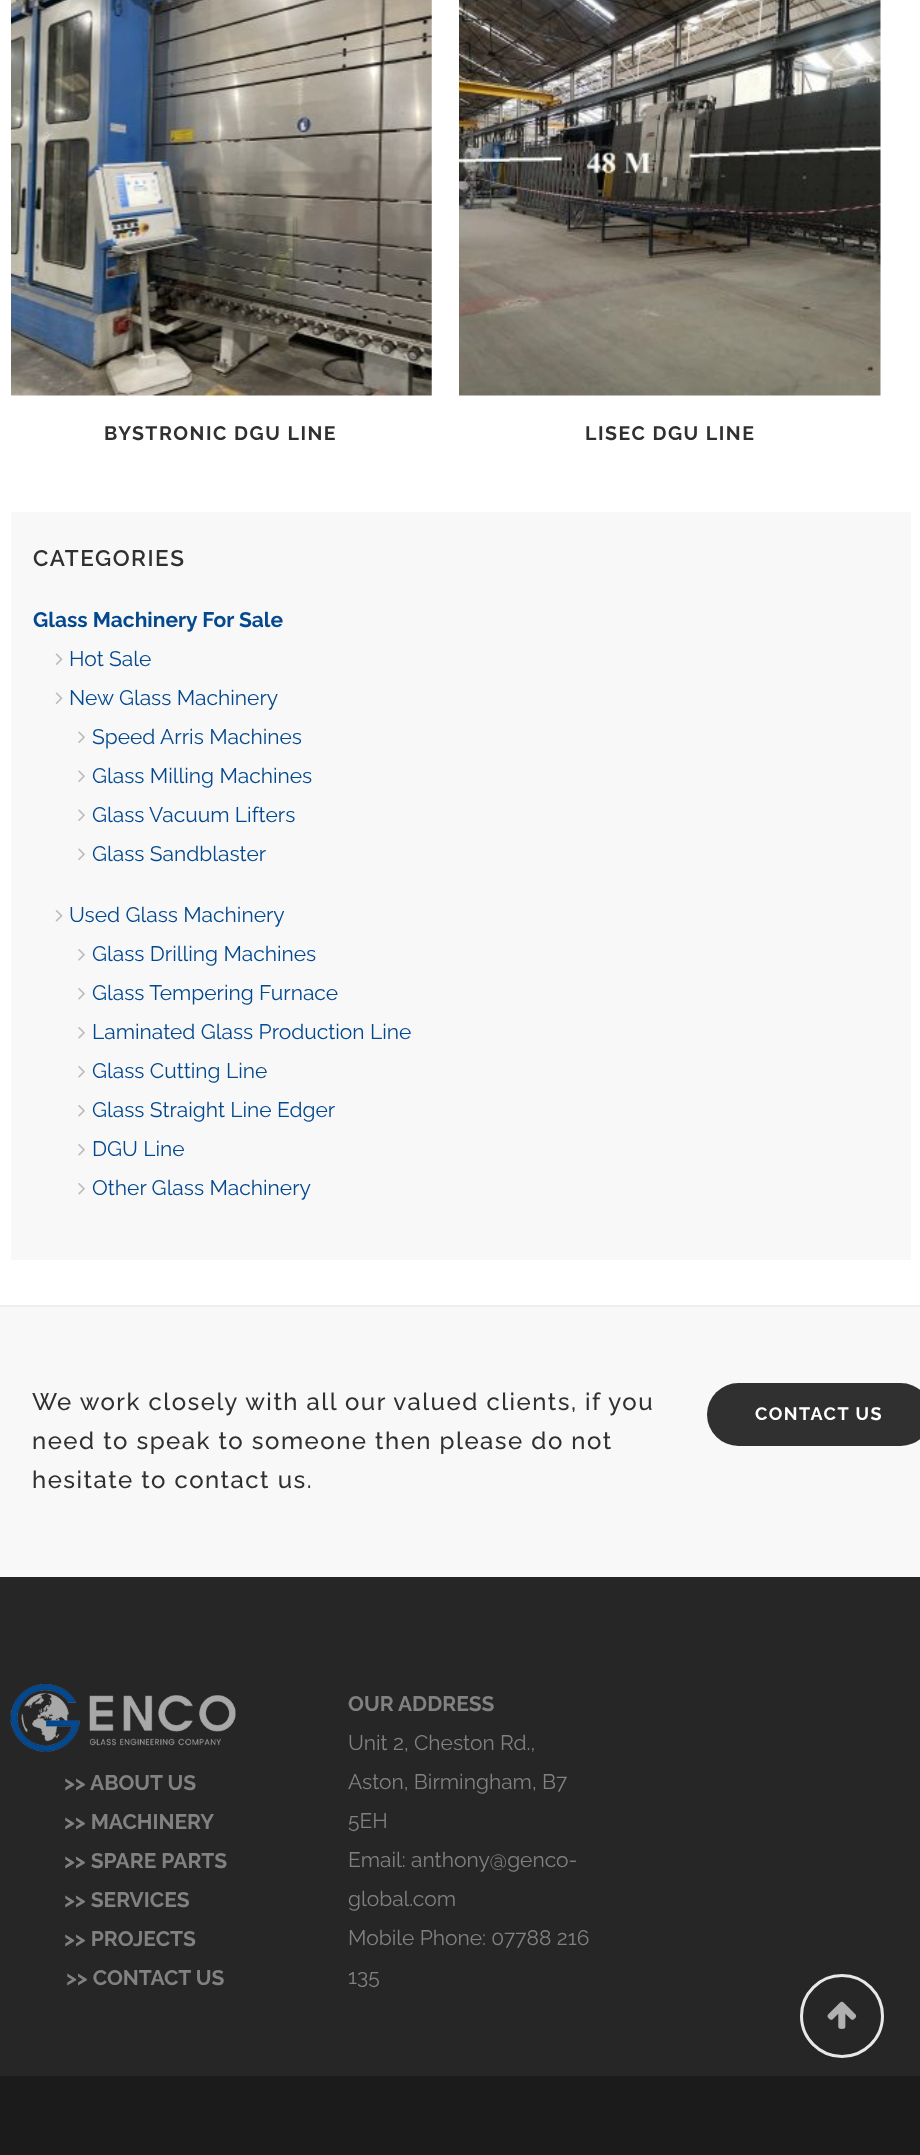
<svg xmlns="http://www.w3.org/2000/svg" xmlns:xlink="http://www.w3.org/1999/xlink" width="920" height="2155" viewBox="0 0 920 2155">
<style>
.cls-1{font:bold 19.5px Raleway;letter-spacing:1.5px;fill:#303030}
.cls-2{font:600 22.5px Raleway;letter-spacing:1.5px;fill:#303030}
.cls-3{font:bold 21px Raleway;fill:#04488e}
.cls-4{font:21px Raleway;fill:#04488e}
.cls-5{font:500 24px Raleway;letter-spacing:1.5px;fill:#303030}
.cls-6{font:bold 18px Raleway;letter-spacing:1.5px;fill:#ffffff}
.cls-7{font:bold 21px Raleway;fill:#818181}
.cls-8{font:21px Raleway;fill:#818181}
</style>
<rect width="100%" height="100%" fill="#ffffff"/>
<image xlink:href="image0.png" x="11" y="0" width="421" height="396"/>
<image xlink:href="image1.png" x="459" y="0" width="422" height="396"/>
<rect fill="#f8f8f8" x="11" y="512" width="900" height="748"/>
<image xlink:href="image2.png" x="55" y="653" width="8" height="12"/>
<image xlink:href="image2.png" x="55" y="692" width="8" height="12"/>
<image xlink:href="image3.png" x="78" y="731" width="7" height="12"/>
<image xlink:href="image3.png" x="78" y="770" width="7" height="12"/>
<image xlink:href="image3.png" x="78" y="809" width="7" height="12"/>
<image xlink:href="image3.png" x="78" y="848" width="7" height="12"/>
<image xlink:href="image4.png" x="55" y="910" width="8" height="12"/>
<image xlink:href="image5.png" x="78" y="949" width="7" height="12"/>
<image xlink:href="image5.png" x="78" y="988" width="7" height="12"/>
<image xlink:href="image5.png" x="78" y="1027" width="7" height="12"/>
<image xlink:href="image5.png" x="78" y="1066" width="7" height="12"/>
<image xlink:href="image5.png" x="78" y="1105" width="7" height="12"/>
<image xlink:href="image5.png" x="78" y="1144" width="7" height="12"/>
<image xlink:href="image5.png" x="78" y="1183" width="7" height="12"/>
<rect fill="#f8f8f8" x="0" y="1307" width="920" height="270"/>
<rect fill="#eeeeee" x="0" y="1305" width="920" height="2"/>
<rect fill="#303030" x="707" y="1383" width="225" height="63" rx="31.5"/>
<rect fill="#262626" x="0" y="1577" width="920" height="499"/>
<image xlink:href="image6.png" x="10" y="1684" width="226" height="68"/>
<rect fill="#1b1b1b" x="0" y="2076" width="920" height="79"/>
<circle fill="none" stroke="#e8e8e8" stroke-width="3" cx="842" cy="2016" r="40.5"/>
<image xlink:href="image7.png" x="827" y="2001" width="30" height="28"/>
<text class="cls-1" x="104" y="440">BYSTRONIC DGU LINE</text>
<text class="cls-1" x="585" y="440">LISEC DGU LINE</text>
<text class="cls-2" x="33" y="566">CATEGORIES</text>
<text class="cls-3" x="33" y="627">Glass Machinery For Sale</text>
<text class="cls-4"><tspan x="69" y="666">Hot Sale</tspan><tspan x="69" y="705">New Glass Machinery</tspan></text>
<text class="cls-4"><tspan x="92" y="744">Speed Arris Machines</tspan><tspan x="92" y="783">Glass Milling Machines</tspan><tspan x="92" y="822">Glass Vacuum Lifters</tspan><tspan x="92" y="861">Glass Sandblaster</tspan></text>
<text class="cls-4" x="69" y="922">Used Glass Machinery</text>
<text class="cls-4"><tspan x="92" y="961">Glass Drilling Machines</tspan><tspan x="92" y="1000">Glass Tempering Furnace</tspan><tspan x="92" y="1039">Laminated Glass Production Line</tspan><tspan x="92" y="1078">Glass Cutting Line</tspan><tspan x="92" y="1117">Glass Straight Line Edger</tspan><tspan x="92" y="1156">DGU Line</tspan><tspan x="92" y="1195">Other Glass Machinery</tspan></text>
<text class="cls-5"><tspan x="32" y="1410">We work closely with all our valued clients, if you</tspan><tspan x="32" y="1449">need to speak to someone then please do not</tspan><tspan x="32" y="1488">hesitate to contact us.</tspan></text>
<text class="cls-6" x="755" y="1420">CONTACT US</text>
<text class="cls-7"><tspan x="64" y="1790">&gt;&gt; ABOUT US</tspan><tspan x="64" y="1829">&gt;&gt; MACHINERY</tspan><tspan x="64" y="1868">&gt;&gt; SPARE PARTS</tspan><tspan x="64" y="1907">&gt;&gt; SERVICES</tspan><tspan x="64" y="1946">&gt;&gt; PROJECTS</tspan></text>
<text class="cls-7" x="66" y="1985">&gt;&gt; CONTACT US</text>
<text class="cls-7" x="348" y="1711">OUR ADDRESS</text>
<text class="cls-8"><tspan x="348" y="1750">Unit 2, Cheston Rd.,</tspan><tspan x="348" y="1789">Aston, Birmingham, B7</tspan><tspan x="348" y="1828">5EH</tspan><tspan x="348" y="1867">Email: anthony@genco-</tspan><tspan x="348" y="1906">global.com</tspan><tspan x="348" y="1945">Mobile Phone: 07788 216</tspan><tspan x="348" y="1984">135</tspan></text>
</svg>
